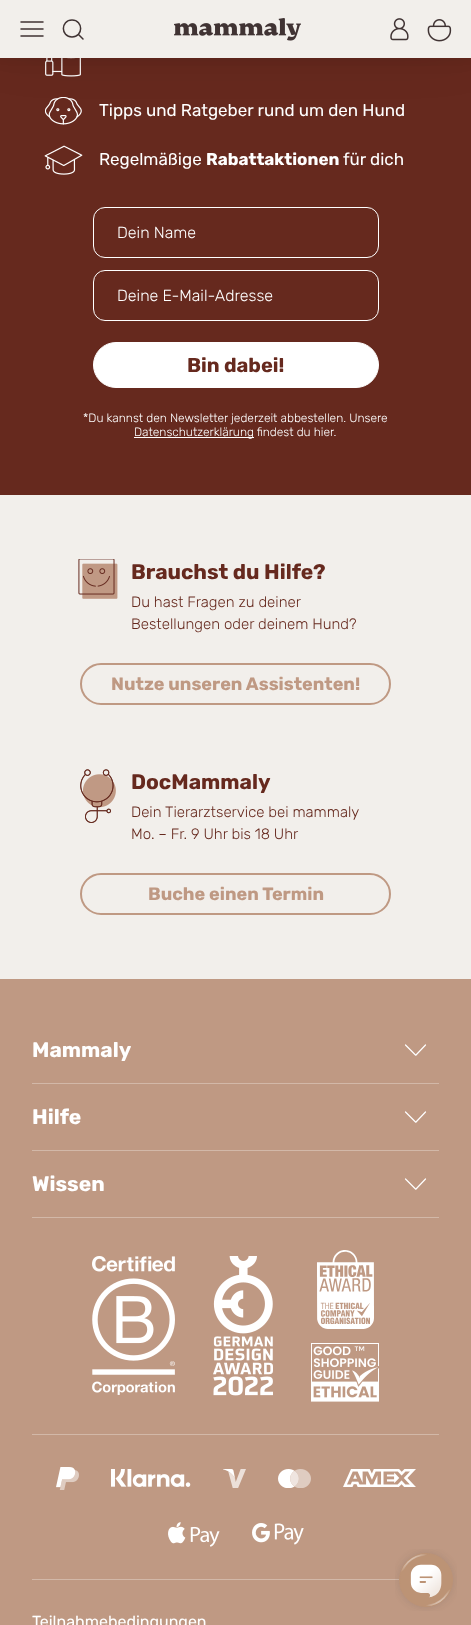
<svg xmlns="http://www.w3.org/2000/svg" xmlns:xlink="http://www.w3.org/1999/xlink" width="471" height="1625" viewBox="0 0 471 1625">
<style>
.cls-1{font:17px Rubik;fill:#ffffff}
.cls-2{font:bold 17px Rubik;fill:#ffffff}
.cls-3{font:300 16px Rubik;fill:#ffffff}
.cls-4{font:bold 20px Rubik;fill:#66291e}
.cls-5{font:300 12px Rubik;fill:#ffffff}
.cls-6{font:bold 21px Rubik;fill:#66291e}
.cls-7{font:300 15px Rubik;fill:#66291e}
.cls-8{font:bold 18px Rubik;fill:#bf9983}
.cls-9{font:bold 21px Rubik;fill:#ffffff}
.cls-10{font:16px Rubik;fill:#ffffff}
</style>
<rect width="100%" height="100%" fill="#bf9983"/>
<rect fill="#66291e" x="0" y="58" width="471" height="437"/>
<image xlink:href="image3.png" x="45" y="58" width="36" height="19"/>
<rect fill="#000000" fill-opacity="0.14" filter="blur(8px)" x="0" y="-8" width="471" height="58"/>
<rect fill="#000000" fill-opacity="0.17" filter="blur(15px)" x="0" y="-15" width="471" height="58"/>
<image xlink:href="image4.png" x="45" y="97" width="37" height="28"/>
<rect fill="#000000" fill-opacity="0.23" filter="blur(36px)" x="0" y="-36" width="471" height="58"/>
<rect fill="#f2efeb" x="0" y="0" width="471" height="58"/>
<path fill="none" stroke="#403333" stroke-width="1.5" stroke-linecap="round" d="M21 22H43M21 29H43M21 36H43"/>
<path fill="none" stroke="#403333" stroke-width="1.5" stroke-linecap="round" stroke-linejoin="round" d="M72 37C83.5 37 83.5 20 72 20C60.5 20 60.5 37 72 37ZM83 39L78.5 34.5"/>
<image xlink:href="image0.png" x="174" y="18" width="127" height="23"/>
<image xlink:href="image1.png" x="390" y="18" width="19" height="23"/>
<image xlink:href="image2.png" x="427" y="19" width="25" height="23"/>
<image xlink:href="image5.png" x="44" y="145" width="39" height="30"/>
<rect fill="none" stroke="#ffffff" x="93.5" y="207.5" width="285" height="50" rx="11.5"/>
<rect fill="none" stroke="#ffffff" x="93.5" y="270.5" width="285" height="50" rx="11.5"/>
<rect fill="#ffffff" stroke="#ffffff" x="93.5" y="342.5" width="285" height="45" rx="22.5"/>
<rect fill="#ffffff" x="134" y="437" width="120" height="1"/>
<rect fill="#f2efeb" x="0" y="495" width="471" height="484"/>
<image xlink:href="image6.png" x="78" y="559" width="40" height="40"/>
<rect fill="none" stroke="#bf9983" stroke-width="2" x="81" y="664" width="309" height="40" rx="20"/>
<image xlink:href="image7.png" x="80" y="769" width="36" height="54"/>
<rect fill="none" stroke="#bf9983" stroke-width="2" x="81" y="874" width="309" height="40" rx="20"/>
<rect fill="#d2b8a8" x="32" y="1083" width="407" height="1"/>
<path fill="none" stroke="#ffffff" stroke-width="1.2" stroke-linecap="round" stroke-linejoin="round" d="M415.5 1055L405.5 1045M425.5 1045L416 1055"/>
<rect fill="#d2b8a8" x="32" y="1150" width="407" height="1"/>
<path fill="none" stroke="#ffffff" stroke-width="1.2" stroke-linecap="round" stroke-linejoin="round" d="M415.5 1122L405.5 1112M425.5 1112L416 1122"/>
<rect fill="#d2b8a8" x="32" y="1217" width="407" height="1"/>
<path fill="none" stroke="#ffffff" stroke-width="1.2" stroke-linecap="round" stroke-linejoin="round" d="M415.5 1189L405.5 1179M425.5 1179L416 1189"/>
<image xlink:href="image8.png" x="92" y="1256" width="83" height="139"/>
<image xlink:href="image9.png" x="213" y="1256" width="60" height="140"/>
<image xlink:href="image10.png" x="317" y="1250" width="57" height="79"/>
<image xlink:href="image11.png" x="311" y="1343" width="68" height="59"/>
<rect fill="#d2b8a8" x="32" y="1434" width="407" height="1"/>
<image xlink:href="image12.png" x="56" y="1467" width="23" height="23"/>
<image xlink:href="image13.png" x="111" y="1469" width="80" height="18"/>
<image xlink:href="image14.png" x="223" y="1469" width="23" height="19"/>
<image xlink:href="image15.png" x="278" y="1469" width="33" height="19"/>
<image xlink:href="image16.png" x="343" y="1469" width="73" height="18"/>
<image xlink:href="image17.png" x="168" y="1522" width="52" height="25"/>
<image xlink:href="image18.png" x="252" y="1523" width="52" height="22"/>
<rect fill="#d2b8a8" x="32" y="1579" width="368" height="1"/>
<image xlink:href="image19.png" x="395" y="1549" width="62" height="62"/>
<text class="cls-1" x="99" y="116">Tipps und Ratgeber rund um den Hund</text>
<text class="cls-1" x="99" y="165">Regelmäßige</text>
<text class="cls-2" x="206" y="165">Rabattaktionen</text>
<text class="cls-1" x="343" y="165">für dich</text>
<text class="cls-3" x="117" y="238">Dein Name</text>
<text class="cls-3" x="117" y="301">Deine E-Mail-Adresse</text>
<text class="cls-4" x="187" y="372">Bin dabei!</text>
<text class="cls-5" x="83" y="422">*Du kannst den Newsletter jederzeit abbestellen. Unsere</text>
<text class="cls-5" x="134" y="436">Datenschutzerklärung findest du hier.</text>
<text class="cls-6" x="131" y="579">Brauchst du Hilfe?</text>
<text class="cls-7"><tspan x="131" y="607">Du hast Fragen zu deiner</tspan><tspan x="131" y="629">Bestellungen oder deinem Hund?</tspan></text>
<text class="cls-8" x="111" y="690">Nutze unseren Assistenten!</text>
<text class="cls-6" x="131" y="789">DocMammaly</text>
<text class="cls-7"><tspan x="131" y="817">Dein Tierarztservice bei mammaly</tspan><tspan x="131" y="839">Mo. – Fr. 9 Uhr bis 18 Uhr</tspan></text>
<text class="cls-8" x="148" y="900">Buche einen Termin</text>
<text class="cls-9" x="32" y="1057">Mammaly</text>
<text class="cls-9" x="32" y="1124">Hilfe</text>
<text class="cls-9" x="32" y="1191">Wissen</text>
<text class="cls-10" x="32" y="1627">Teilnahmebedingungen</text>
</svg>
